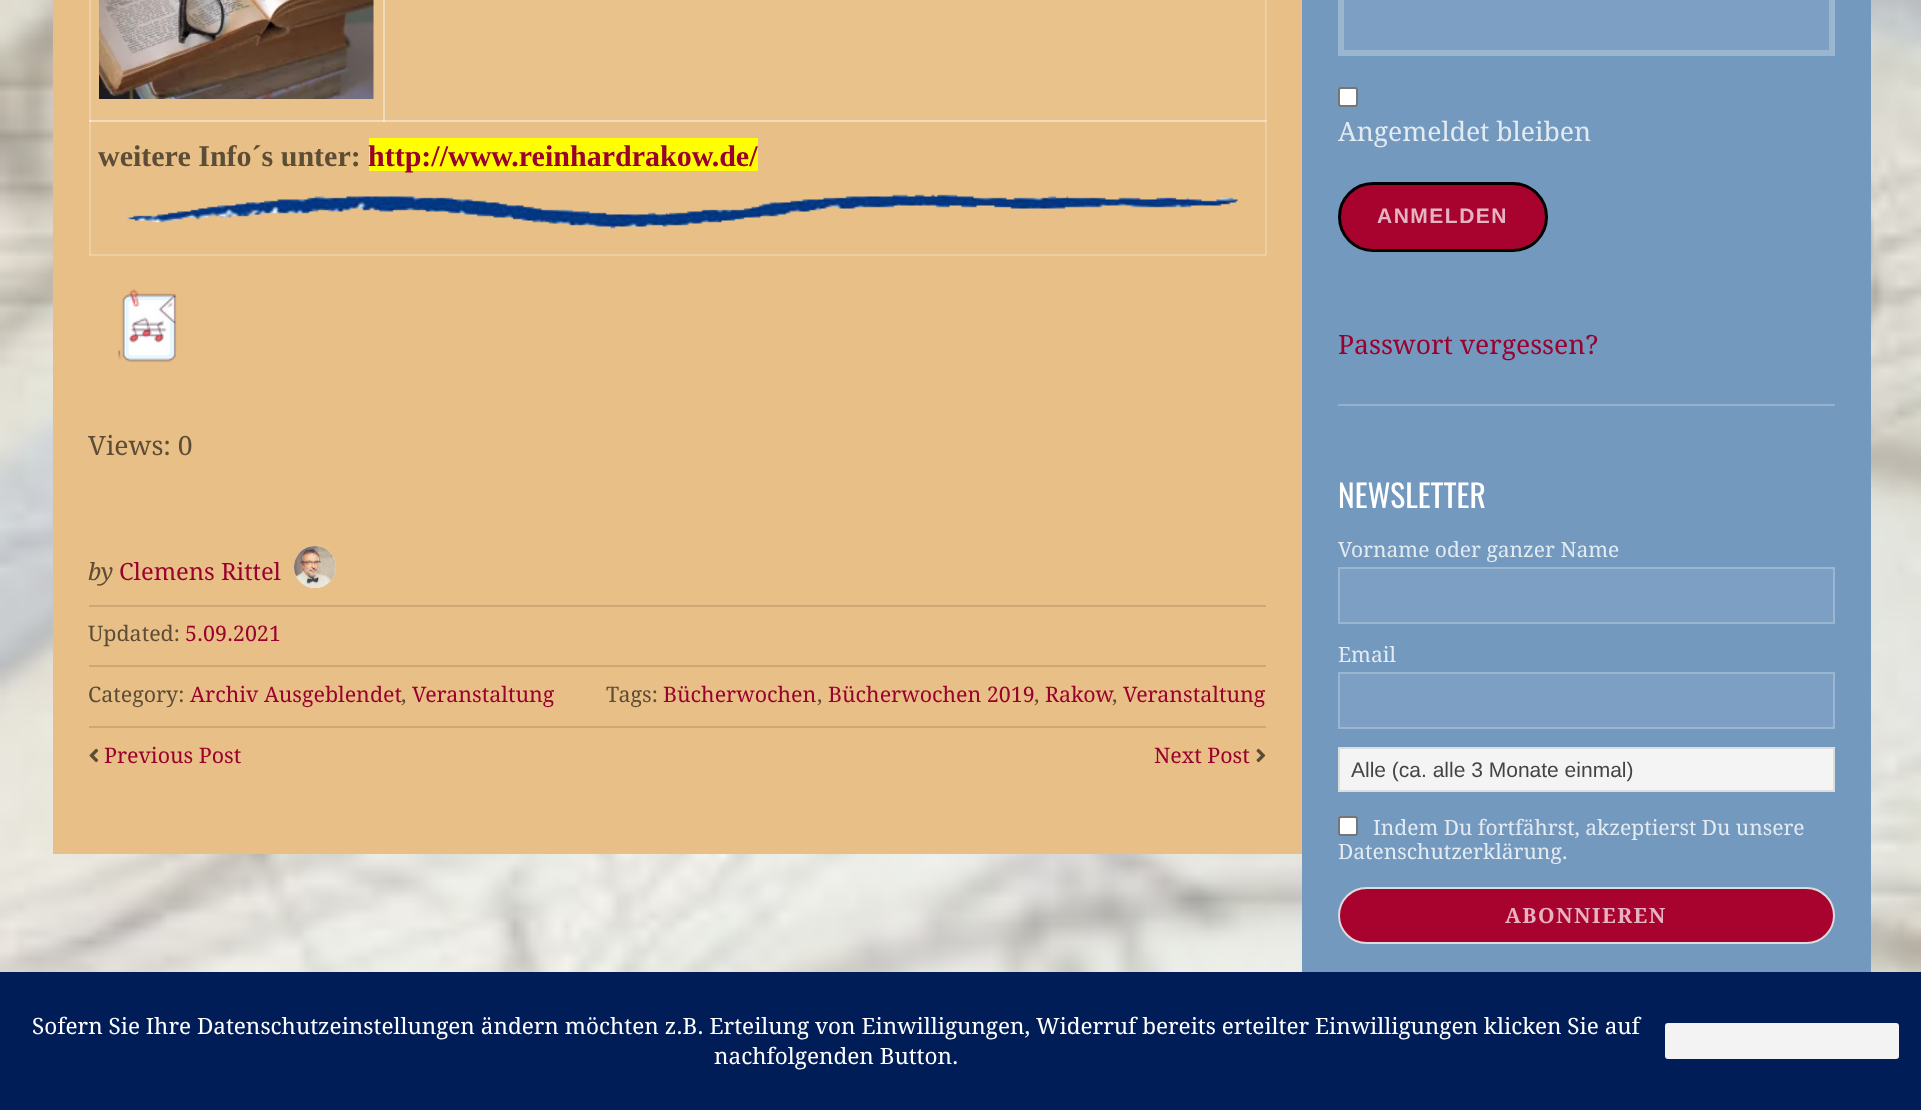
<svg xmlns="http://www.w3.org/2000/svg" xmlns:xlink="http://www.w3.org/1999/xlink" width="1921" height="1110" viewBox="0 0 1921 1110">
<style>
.cls-1{font:bold 30px Liberation Serif;fill:#5d4c36}
.cls-2{font:bold 30px Liberation Serif;fill:#99012e}
.cls-3{font:26.5px Droid Serif;fill:#5d4c36}
.cls-4{font:italic 23.75px Droid Serif;fill:#5d4c36}
.cls-5{font:23.75px Droid Serif;fill:#99012e}
.cls-6{font:21.4px Droid Serif;fill:#5d4c36}
.cls-7{font:21.4px Droid Serif;fill:#99012e}
.cls-8{font:26.5px Droid Serif;fill:#e3ebf2}
.cls-9{font:bold 21px Liberation Sans;letter-spacing:1.5px;fill:#e5b3c1}
.cls-10{font:26.5px Droid Serif;fill:#99012e}
.cls-11{font:31.5px Oswald;fill:#ffffff}
.cls-12{font:21px Droid Serif;fill:#e3ebf2}
.cls-13{font:21px Liberation Sans;fill:#444444}
.cls-14{font:bold 21px Droid Serif;letter-spacing:1.5px;fill:#e5b3c1}
.cls-15{font:22.5px Droid Serif;fill:#ffffff}
</style>
<rect width="100%" height="100%" fill="#ffffff"/>
<image xlink:href="image0.png" x="0" y="0" width="1921" height="972"/>
<rect fill="#e8bf86" x="53" y="0" width="1249" height="854"/>
<rect fill="#e9c28b" x="89" y="0" width="1176" height="122"/>
<rect fill="#ffffff" fill-opacity="0.24" x="89" y="120" width="1177" height="2"/>
<rect fill="#ffffff" fill-opacity="0.24" x="1265" y="120" width="2" height="135"/>
<rect fill="#ffffff" fill-opacity="0.24" x="1265" y="0" width="2" height="122"/>
<rect fill="#ffffff" fill-opacity="0.24" x="383" y="120" width="883" height="2"/>
<rect fill="#ffffff" fill-opacity="0.24" x="383" y="0" width="2" height="122"/>
<rect fill="#ffffff" fill-opacity="0.24" x="383" y="0" width="2" height="122"/>
<rect fill="#ffffff" fill-opacity="0.24" x="89" y="254" width="1177" height="2"/>
<rect fill="#ffffff" fill-opacity="0.24" x="89" y="120" width="2" height="135"/>
<rect fill="#ffffff" fill-opacity="0.24" x="89" y="120" width="295" height="2"/>
<rect fill="#ffffff" fill-opacity="0.24" x="89" y="0" width="2" height="122"/>
<image xlink:href="image1.png" x="99" y="0" width="275" height="99"/>
<rect fill="#ffff00" x="369" y="138" width="389" height="33"/>
<image xlink:href="image2.png" x="125" y="194" width="1113" height="35"/>
<image xlink:href="image3.png" x="118" y="289" width="59" height="73"/>
<circle fill="#ffffff" cx="315" cy="567" r="21"/>
<image xlink:href="image4.png" x="294" y="546" width="42" height="42"/>
<rect fill="#cca876" x="89" y="605" width="1177" height="2"/>
<rect fill="#cca876" x="89" y="665" width="1177" height="2"/>
<rect fill="#cca876" x="89" y="726" width="1177" height="2"/>
<image xlink:href="image5.png" x="89" y="748" width="10" height="15"/>
<image xlink:href="image6.png" x="1256" y="748" width="10" height="15"/>
<rect fill="#7499bf" x="1302" y="0" width="569" height="972"/>
<rect fill="#95b1ce" x="1338" y="404" width="497" height="2"/>
<rect fill="#7c9fc3" stroke="#9bb6d1" stroke-width="6" x="1341" y="-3" width="491" height="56"/>
<rect fill="#ffffff" stroke="#767676" stroke-width="2" x="1339" y="88" width="18" height="18" rx="2"/>
<rect fill="#a8032f" stroke="#000000" stroke-width="3" x="1339.5" y="183.5" width="207" height="67" rx="33.5"/>
<rect fill="#7c9fc3" stroke="#9bb6d1" stroke-width="2" x="1339" y="568" width="495" height="55"/>
<rect fill="#7c9fc3" stroke="#9bb6d1" stroke-width="2" x="1339" y="673" width="495" height="55"/>
<rect fill="#f4f4f4" stroke="#dddddd" stroke-width="2" x="1339" y="748" width="495" height="43"/>
<rect fill="#ffffff" stroke="#767676" stroke-width="2" x="1339" y="817" width="18" height="18" rx="2"/>
<rect fill="#a8032f" stroke="#dddddd" stroke-width="2" x="1339" y="888" width="495" height="55" rx="27.5"/>
<rect fill="#011d57" x="0" y="972" width="1921" height="138"/>
<rect fill="#f3f3f3" stroke="#f3f3f3" stroke-width="2" x="1666" y="1024" width="232" height="34" rx="2"/>
<text class="cls-1" x="98" y="166">weitere Info´s unter:</text>
<text class="cls-2" x="368" y="166">http://www.reinhardrakow.de/</text>
<text class="cls-3" x="88" y="455">Views: 0</text>
<text class="cls-4" x="88" y="580">by</text>
<text class="cls-5" x="119" y="580">Clemens Rittel</text>
<text class="cls-6" x="88" y="641">Updated:</text>
<text class="cls-7" x="185" y="641">5.09.2021</text>
<text class="cls-6" x="88" y="702">Category:</text>
<text class="cls-7" x="190" y="702">Archiv Ausgeblendet</text>
<text class="cls-6" x="401" y="702">,</text>
<text class="cls-7" x="412" y="702">Veranstaltung</text>
<text class="cls-6" x="606" y="702">Tags:</text>
<text class="cls-7" x="663" y="702">Bücherwochen</text>
<text class="cls-6" x="817" y="702">,</text>
<text class="cls-7" x="828" y="702">Bücherwochen 2019</text>
<text class="cls-6" x="1034" y="702">,</text>
<text class="cls-7" x="1045" y="702">Rakow</text>
<text class="cls-6" x="1112" y="702">,</text>
<text class="cls-7" x="1123" y="702">Veranstaltung</text>
<text class="cls-7" x="104" y="763">Previous Post</text>
<text class="cls-7" x="1154" y="763">Next Post</text>
<text class="cls-8" x="1338" y="141">Angemeldet bleiben</text>
<text class="cls-9" x="1377" y="223">ANMELDEN</text>
<text class="cls-10" x="1338" y="354">Passwort vergessen?</text>
<text class="cls-11" x="1338" y="508">NEWSLETTER</text>
<text class="cls-12" x="1338" y="557">Vorname oder ganzer Name</text>
<text class="cls-12" x="1338" y="662">Email</text>
<text class="cls-13" x="1351" y="777">Alle (ca. alle 3 Monate einmal)</text>
<text class="cls-12" x="1373" y="835">Indem Du fortfährst, akzeptierst Du unsere</text>
<text class="cls-12" x="1338" y="859">Datenschutzerklärung.</text>
<text class="cls-14" x="1505" y="923">ABONNIEREN</text>
<text class="cls-15" x="32" y="1034">Sofern Sie Ihre Datenschutzeinstellungen ändern möchten z.B. Erteilung von Einwilligungen, Widerruf bereits erteilter Einwilligungen klicken Sie auf</text>
<text class="cls-15" x="714" y="1064">nachfolgenden Button.</text>
</svg>
